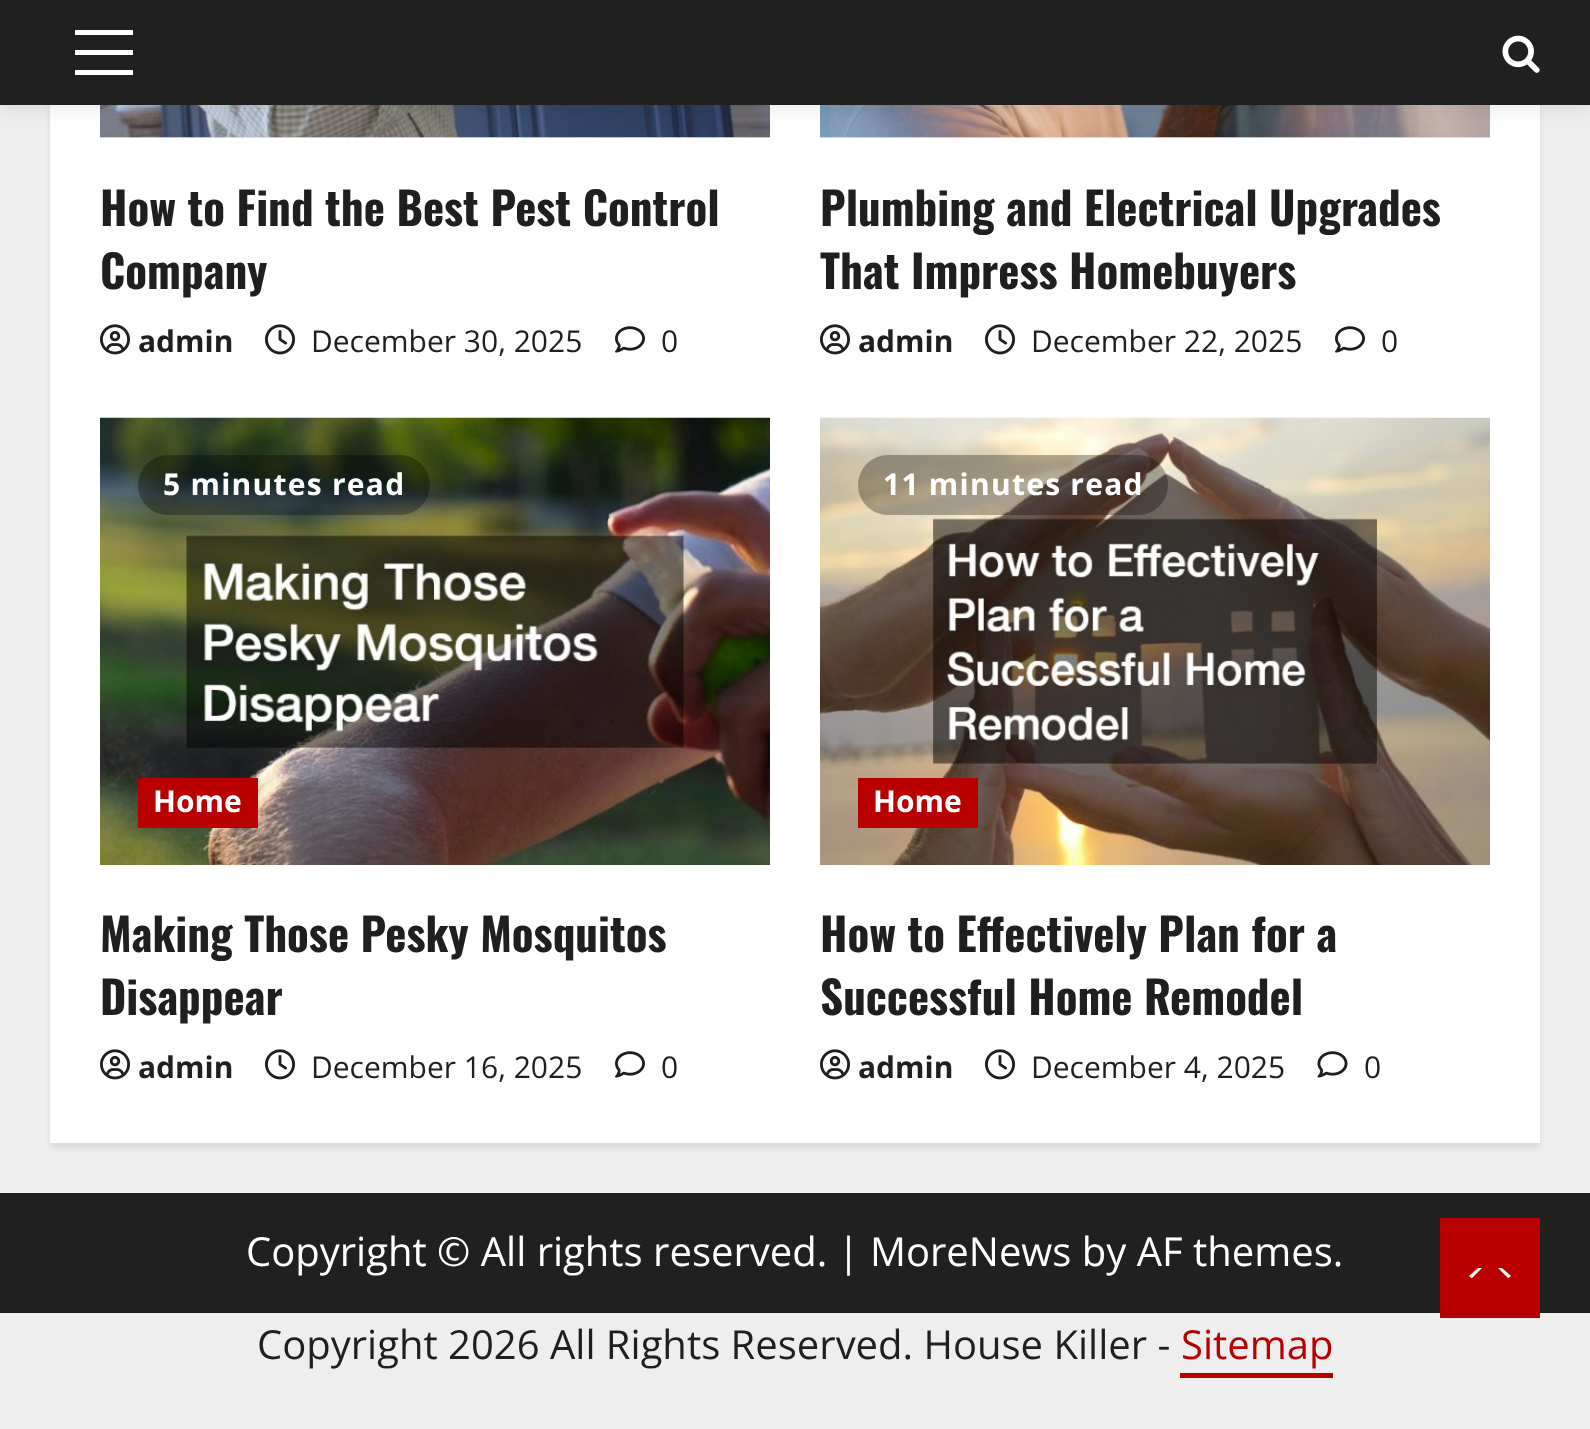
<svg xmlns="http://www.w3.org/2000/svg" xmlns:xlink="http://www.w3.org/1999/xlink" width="1590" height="1429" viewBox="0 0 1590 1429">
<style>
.cls-1{font:bold 45px Oswald;fill:#1f1f1f}
.cls-2{font:bold 30px Open Sans;fill:#1f1f1f}
.cls-3{font:30px Open Sans;fill:#1f1f1f}
.cls-4{font:bold 30px Open Sans;letter-spacing:1.25px;fill:#ffffff}
.cls-5{font:bold 30px Open Sans;fill:#ffffff}
.cls-6{font:40px Open Sans;fill:#ffffff}
.cls-7{font:40px Open Sans;fill:#1f1f1f}
.cls-8{font:40px Open Sans;fill:#b80000}
</style>
<rect width="100%" height="100%" fill="#eeeeee"/>
<rect fill="#000000" fill-opacity="0.08" filter="blur(2.5px)" x="50" y="-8" width="1490" height="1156"/>
<rect fill="#ffffff" x="50" y="105" width="1490" height="1038"/>
<rect fill="#ececec" x="100" y="137" width="670" height="1"/>
<image xlink:href="image1.png" x="100" y="105" width="670" height="33"/>
<rect fill="#ececec" x="820" y="137" width="670" height="1"/>
<image xlink:href="image5.png" x="820" y="105" width="670" height="33"/>
<rect fill="#000000" fill-opacity="0.08" filter="blur(10px)" x="0" y="5" width="1590" height="105"/>
<rect fill="#202020" x="0" y="0" width="1590" height="105"/>
<rect fill="#ffffff" x="75" y="50" width="58" height="5"/>
<rect fill="#ffffff" x="75" y="30" width="58" height="5"/>
<rect fill="#ffffff" x="75" y="70" width="58" height="5"/>
<image xlink:href="image0.png" x="1502" y="35" width="38" height="38"/>
<image xlink:href="image2.png" x="100" y="324" width="30" height="31"/>
<image xlink:href="image3.png" x="265" y="324" width="30" height="31"/>
<image xlink:href="image4.png" x="615" y="326" width="30" height="27"/>
<image xlink:href="image2.png" x="820" y="324" width="30" height="31"/>
<image xlink:href="image3.png" x="985" y="324" width="30" height="31"/>
<image xlink:href="image4.png" x="1335" y="326" width="30" height="27"/>
<image xlink:href="image6.png" x="100" y="417" width="670" height="448"/>
<rect fill="#000000" fill-opacity="0.3" x="138" y="455" width="292" height="60" rx="30"/>
<rect fill="#b80000" x="138" y="778" width="120" height="50"/>
<image xlink:href="image2.png" x="100" y="1049" width="30" height="31"/>
<image xlink:href="image3.png" x="265" y="1049" width="30" height="31"/>
<image xlink:href="image4.png" x="615" y="1051" width="30" height="27"/>
<image xlink:href="image7.png" x="820" y="417" width="670" height="448"/>
<rect fill="#000000" fill-opacity="0.3" x="858" y="455" width="310" height="60" rx="30"/>
<rect fill="#b80000" x="858" y="778" width="120" height="50"/>
<image xlink:href="image2.png" x="820" y="1049" width="30" height="31"/>
<image xlink:href="image3.png" x="985" y="1049" width="30" height="31"/>
<image xlink:href="image8.png" x="1317" y="1051" width="31" height="27"/>
<rect fill="#202020" x="0" y="1193" width="1590" height="120"/>
<rect fill="#b80000" x="1440" y="1218" width="100" height="100"/>
<path fill="#ffffff" d="M1478 1280H1502C1506 1280 1509 1278 1511 1276L1502 1268H1478L1469 1276C1471 1278 1474 1280 1478 1280Z"/>
<path fill="#b80000" d="M1515 1285H1465L1490 1260Z"/>
<rect fill="#b80000" x="1180" y="1373" width="153" height="5"/>
<text class="cls-1"><tspan x="100" y="226">How to Find the Best Pest Control</tspan><tspan x="100" y="289">Company</tspan></text>
<text class="cls-2" x="138" y="352">admin</text>
<text class="cls-3" x="311" y="352">December 30, 2025</text>
<text class="cls-3" x="661" y="352">0</text>
<text class="cls-1"><tspan x="820" y="226">Plumbing and Electrical Upgrades</tspan><tspan x="820" y="289">That Impress Homebuyers</tspan></text>
<text class="cls-2" x="858" y="352">admin</text>
<text class="cls-3" x="1031" y="352">December 22, 2025</text>
<text class="cls-3" x="1381" y="352">0</text>
<text class="cls-4" x="163" y="495">5 minutes read</text>
<text class="cls-5" x="153" y="812">Home</text>
<text class="cls-1"><tspan x="100" y="952">Making Those Pesky Mosquitos</tspan><tspan x="100" y="1015">Disappear</tspan></text>
<text class="cls-2" x="138" y="1078">admin</text>
<text class="cls-3" x="311" y="1078">December 16, 2025</text>
<text class="cls-3" x="661" y="1078">0</text>
<text class="cls-4" x="883" y="495">11 minutes read</text>
<text class="cls-5" x="873" y="812">Home</text>
<text class="cls-1"><tspan x="820" y="952">How to Effectively Plan for a</tspan><tspan x="820" y="1015">Successful Home Remodel</tspan></text>
<text class="cls-2" x="858" y="1078">admin</text>
<text class="cls-3" x="1031" y="1078">December 4, 2025</text>
<text class="cls-3" x="1364" y="1078">0</text>
<text class="cls-6" x="246" y="1266">Copyright © All rights reserved. | MoreNews by AF themes.</text>
<text class="cls-7" x="257" y="1359">Copyright 2026 All Rights Reserved. House Killer -</text>
<text class="cls-8" x="1181" y="1359">Sitemap</text>
</svg>
